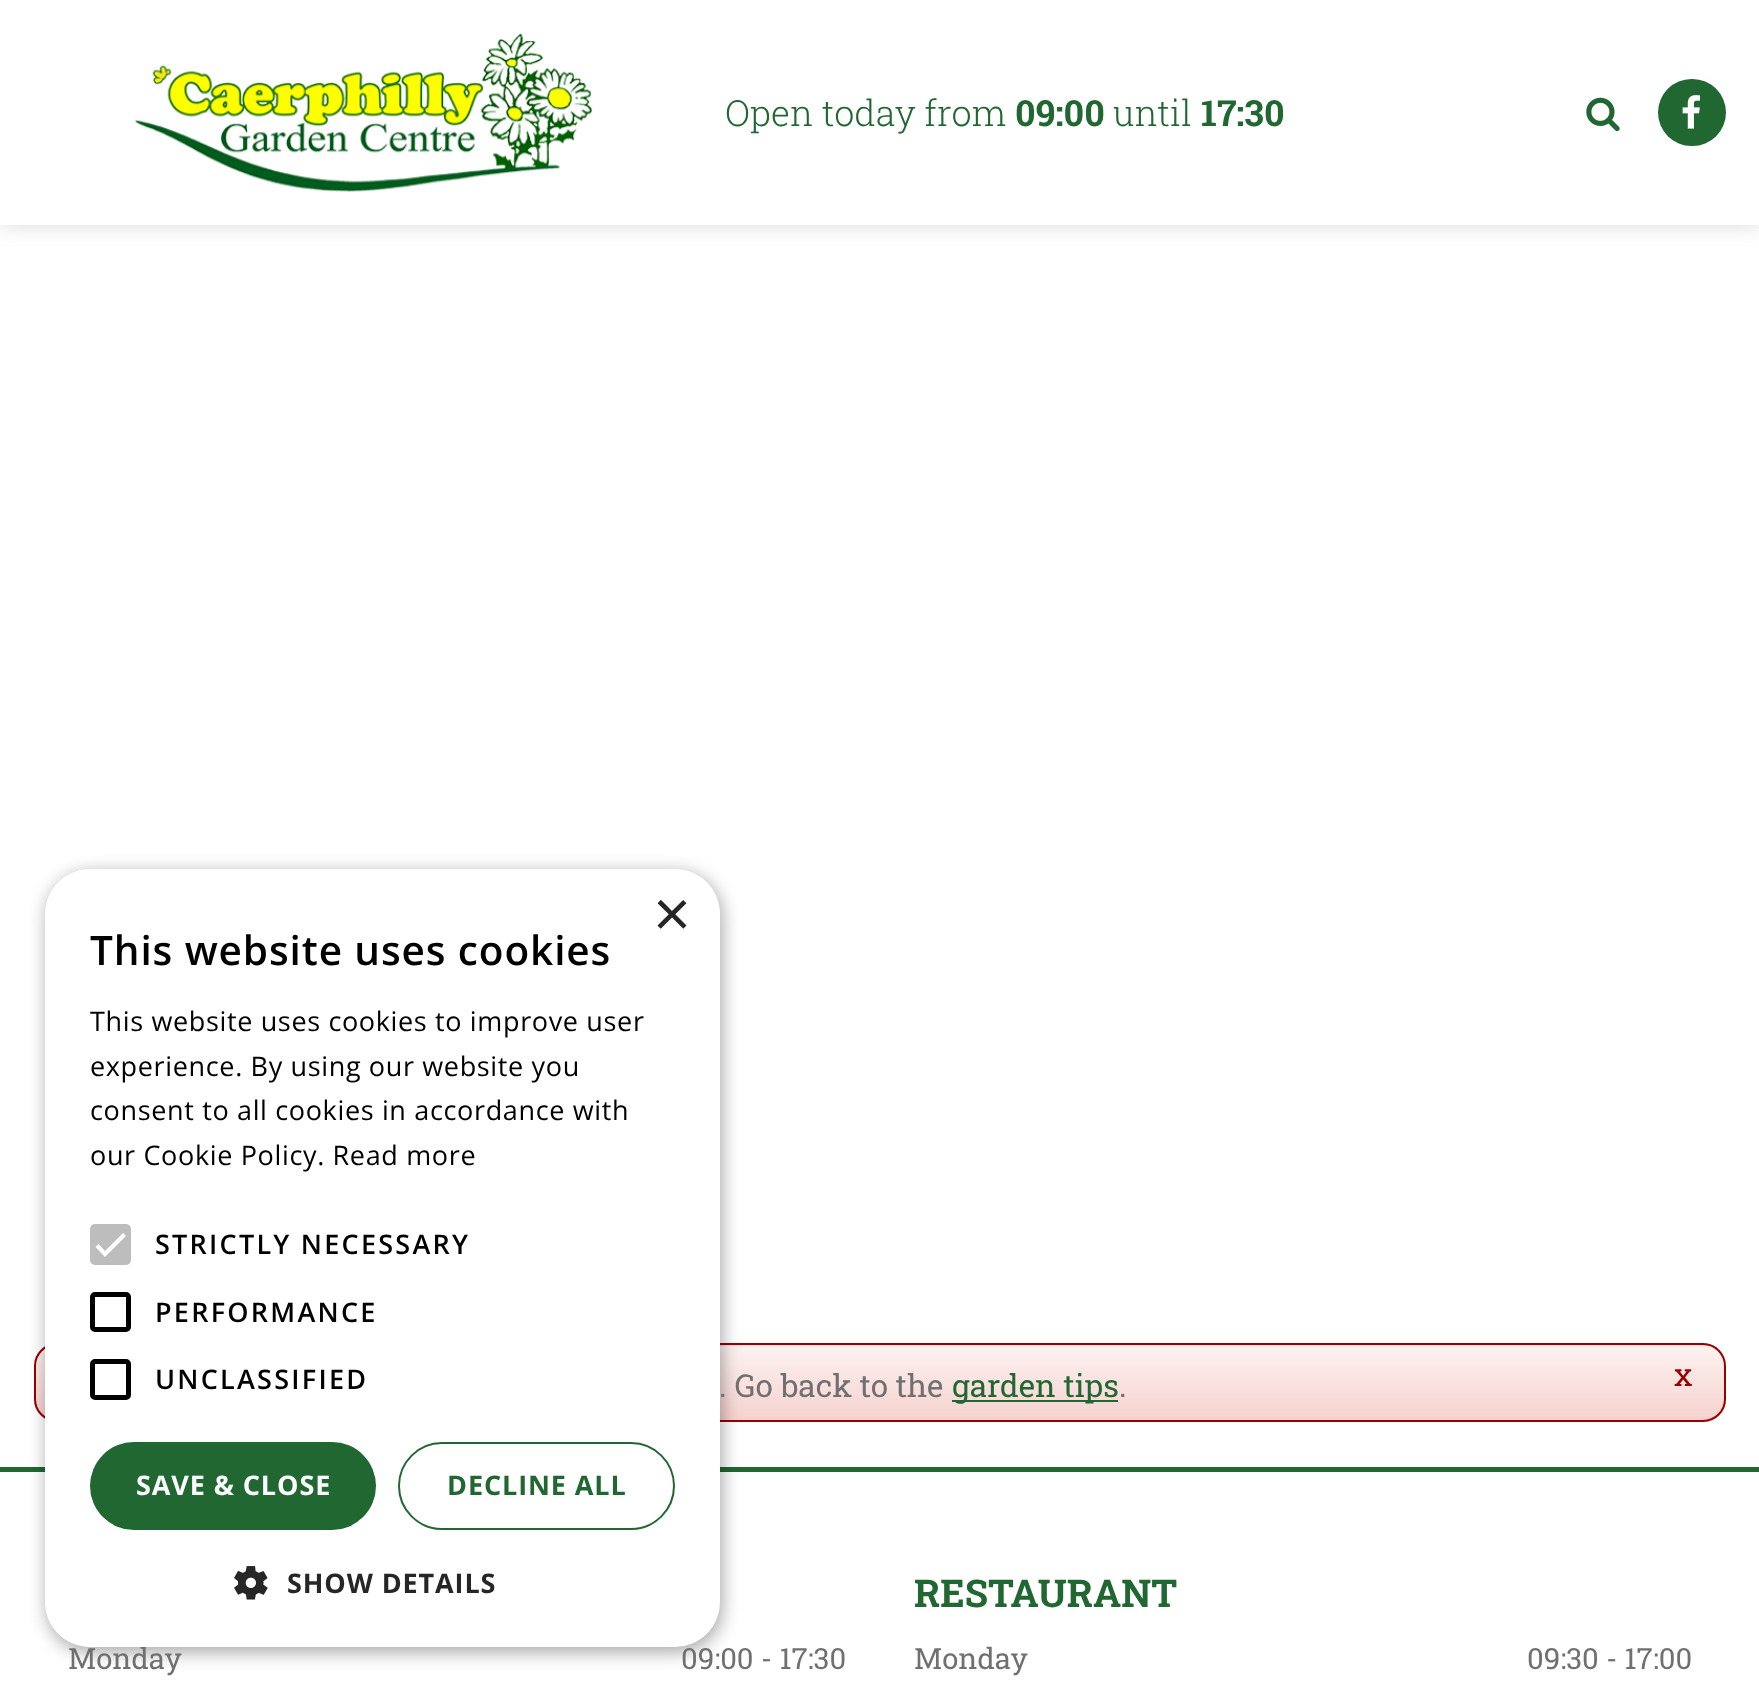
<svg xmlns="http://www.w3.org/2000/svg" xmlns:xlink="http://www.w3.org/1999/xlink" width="1759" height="1690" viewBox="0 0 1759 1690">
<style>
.cls-1{font:300 36px Roboto Slab;fill:#206732}
.cls-2{font:bold 36px Roboto Slab;fill:#206732}
.cls-3{font:31.5px Roboto Slab;fill:#707070}
.cls-4{font:31.5px Roboto Slab;fill:#206732}
.cls-5{font:31.5px Roboto Slab;fill:#990000}
.cls-6{font:29.25px Roboto Slab;fill:#707070}
.cls-7{font:bold 38.25px Roboto Slab;fill:#206732}
.cls-8{font:65px Liberation Sans;fill:#262626}
.cls-9{font:600 40.5px Open Sans;letter-spacing:0.9px;fill:#000000}
.cls-10{font:27px Open Sans;letter-spacing:0.65px;fill:#000000}
.cls-11{font:600 27px Open Sans;letter-spacing:2.25px;fill:#000000}
.cls-12{font:bold 27px Open Sans;letter-spacing:0.9px;fill:#ffffff}
.cls-13{font:bold 27px Open Sans;letter-spacing:0.9px;fill:#206732}
.cls-14{font:bold 27px Open Sans;letter-spacing:0.9px;fill:#262626}
</style>
<rect width="100%" height="100%" fill="#ffffff"/>
<rect fill="#000000" fill-opacity="0.15" filter="blur(11px)" x="0" y="0" width="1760" height="225"/>
<rect fill="#ffffff" x="0" y="0" width="1759" height="225"/>
<image xlink:href="image0.png" x="135" y="33" width="457" height="159"/>
<image xlink:href="image1.png" x="1586" y="97" width="34" height="35"/>
<rect fill="#206732" x="1658" y="79" width="68" height="67" rx="33.5"/>
<image xlink:href="image2.png" x="1682" y="95" width="18" height="34"/>
<rect fill="#f5d0cd" x="34" y="1343" width="1692" height="79" rx="23"/>
<image xlink:href="image3.png" x="34" y="1345" width="1692" height="77"/>
<rect fill="none" stroke="#990000" stroke-width="2" x="35" y="1344" width="1690" height="77" rx="22"/>
<rect fill="#206732" x="952" y="1400" width="166" height="2"/>
<rect fill="#206732" x="0" y="1467" width="1759" height="5"/>
<rect fill="#000000" fill-opacity="0.35" filter="blur(9px)" x="47" y="873" width="675" height="779" rx="45"/>
<text class="cls-1" x="725" y="126">Open today from</text>
<text class="cls-2" x="1015" y="126">09:00</text>
<text class="cls-1" x="1113" y="126">until</text>
<text class="cls-2" x="1201" y="126">17:30</text>
<text class="cls-3" x="719" y="1397">. Go back to the</text>
<text class="cls-4" x="952" y="1397">garden tips</text>
<text class="cls-3" x="1119" y="1397">.</text>
<text class="cls-5" x="1674" y="1386">x</text>
<text class="cls-6" x="68" y="1669">Monday</text>
<text class="cls-6" x="681" y="1669">09:00 - 17:30</text>
<text class="cls-7" x="914" y="1607">RESTAURANT</text>
<text class="cls-6" x="914" y="1669">Monday</text>
<text class="cls-6" x="1527" y="1669">09:30 - 17:00</text>
<rect fill="#ffffff" x="45" y="869" width="675" height="778" rx="45"/>
<text class="cls-8" x="653" y="936">×</text>
<text class="cls-9" x="90" y="965">This website uses cookies</text>
<text class="cls-10"><tspan x="90" y="1031">This website uses cookies to improve user</tspan><tspan x="90" y="1076">experience. By using our website you</tspan><tspan x="90" y="1120">consent to all cookies in accordance with</tspan><tspan x="90" y="1165">our Cookie Policy. Read more</tspan></text>
<rect fill="#bdbdbd" x="90" y="1224" width="41" height="41" rx="5"/>
<path fill="none" stroke="#ffffff" stroke-width="4.1" d="M97 1245.5L105 1254L124.5 1234.5"/>
<text class="cls-11" x="155" y="1254">STRICTLY NECESSARY</text>
<rect fill="none" stroke="#000000" stroke-width="5" x="92.5" y="1294.5" width="36" height="35" rx="2.5"/>
<text class="cls-11" x="155" y="1322">PERFORMANCE</text>
<rect fill="none" stroke="#000000" stroke-width="5" x="92.5" y="1361.5" width="36" height="36" rx="2.5"/>
<text class="cls-11" x="155" y="1389">UNCLASSIFIED</text>
<rect fill="#206732" x="90" y="1442" width="286" height="88" rx="44"/>
<text class="cls-12" x="136" y="1495">SAVE &amp; CLOSE</text>
<rect fill="none" stroke="#206732" stroke-width="2" x="399" y="1443" width="275" height="86" rx="43"/>
<text class="cls-13" x="447" y="1495">DECLINE ALL</text>
<image xlink:href="image4.png" x="234" y="1566" width="34" height="34"/>
<text class="cls-14" x="287" y="1593">SHOW DETAILS</text>
</svg>
